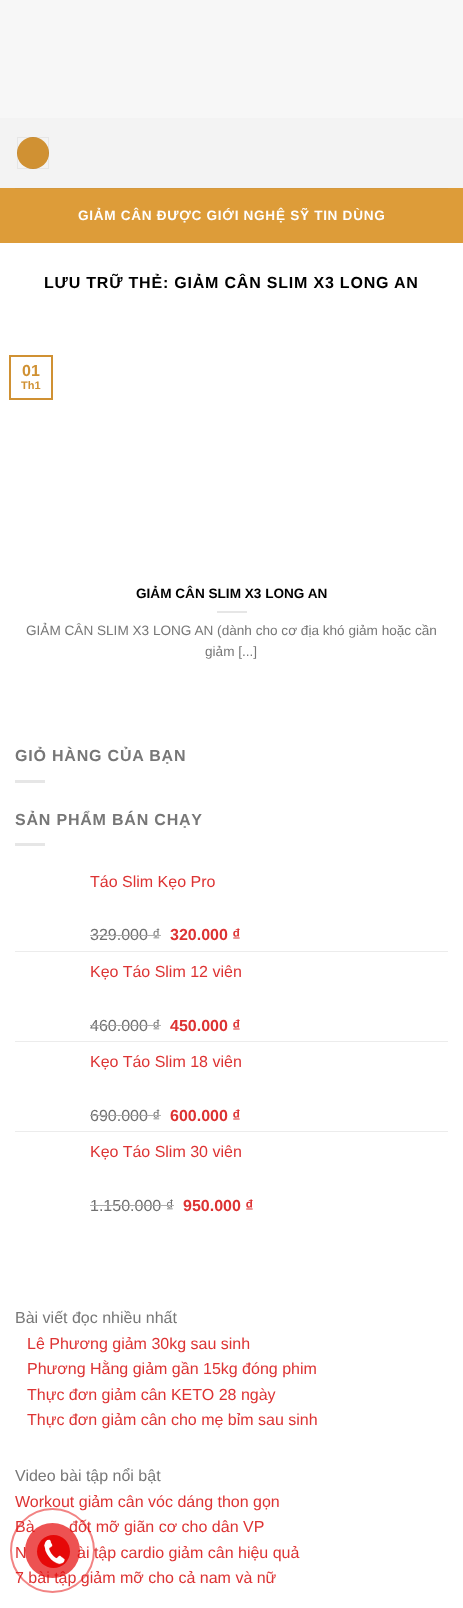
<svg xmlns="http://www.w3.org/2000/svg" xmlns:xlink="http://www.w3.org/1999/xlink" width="463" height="1608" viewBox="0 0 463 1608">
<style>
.cls-1{font:bold 13.6px Liberation Sans;letter-spacing:0.7px;fill:#ffffff}
.cls-2{font:bold 16px Liberation Sans;letter-spacing:0.8px;fill:#000000}
.cls-3{font:bold 16px Liberation Sans;fill:#d09133}
.cls-4{font:bold 11px Liberation Sans;fill:#d09133}
.cls-5{font:bold 13.6px Liberation Sans;fill:#000000}
.cls-6{font:13.6px Liberation Sans;fill:#777777}
.cls-7{font:bold 16px Liberation Sans;letter-spacing:0.8px;fill:#777777}
.cls-8{font:16px Liberation Sans;fill:#dd3333}
.cls-9{font:16px Liberation Sans;fill:#707070}
.cls-10{font:bold 16px Liberation Sans;fill:#dd3333}
.cls-11{font:16px Liberation Sans;fill:#777777}
</style>
<rect width="100%" height="100%" fill="#ffffff"/>
<rect fill="#f7f7f7" x="0" y="0" width="463" height="118"/>
<rect fill="#f3f3f3" x="0" y="118" width="463" height="70"/>
<circle fill="#d09133" cx="33" cy="153" r="16"/>
<rect fill="none" stroke="#000000" stroke-opacity="0.05" x="17.5" y="137.5" width="31" height="31"/>
<rect fill="#dd9c39" x="0" y="188" width="463" height="55"/>
<rect fill="#d3983f" x="15" y="188" width="433" height="1"/>
<rect fill="none" stroke="#d09133" stroke-width="2" x="10" y="356" width="42" height="43"/>
<rect fill="#e6e6e6" x="217" y="611" width="30" height="2"/>
<rect fill="#e6e6e6" x="15" y="780" width="30" height="3"/>
<rect fill="#e6e6e6" x="15" y="843" width="30" height="3"/>
<rect fill="#ececec" x="15" y="951" width="433" height="1"/>
<rect fill="#ececec" x="15" y="1041" width="433" height="1"/>
<rect fill="#ececec" x="15" y="1131" width="433" height="1"/>
<text class="cls-1" x="78" y="220">GIẢM CÂN ĐƯỢC GIỚI NGHỆ SỸ TIN DÙNG</text>
<text class="cls-2" x="44" y="288">LƯU TRỮ THẺ: GIẢM CÂN SLIM X3 LONG AN</text>
<text class="cls-3" x="22" y="376">01</text>
<text class="cls-4" x="21" y="389">Th1</text>
<text class="cls-5" x="136" y="598">GIẢM CÂN SLIM X3 LONG AN</text>
<text class="cls-6" x="26" y="635">GIẢM CÂN SLIM X3 LONG AN (dành cho cơ địa khó giảm hoặc cần</text>
<text class="cls-6" x="205" y="656">giảm [...]</text>
<text class="cls-7" x="15" y="761">GIỎ HÀNG CỦA BẠN</text>
<text class="cls-7" x="15" y="825">SẢN PHẨM BÁN CHẠY</text>
<text class="cls-8" x="90" y="887">Táo Slim Kẹo Pro</text>
<text class="cls-9" x="90" y="940">329.000 ₫</text>
<rect fill="#adadad" x="90" y="935" width="71" height="1"/>
<text class="cls-10" x="170" y="940">320.000 ₫</text>
<text class="cls-8" x="90" y="977">Kẹo Táo Slim 12 viên</text>
<text class="cls-9" x="90" y="1031">460.000 ₫</text>
<rect fill="#adadad" x="90" y="1025" width="71" height="1"/>
<text class="cls-10" x="170" y="1031">450.000 ₫</text>
<text class="cls-8" x="90" y="1067">Kẹo Táo Slim 18 viên</text>
<text class="cls-9" x="90" y="1121">690.000 ₫</text>
<rect fill="#adadad" x="90" y="1115" width="71" height="1"/>
<text class="cls-10" x="170" y="1121">600.000 ₫</text>
<text class="cls-8" x="90" y="1157">Kẹo Táo Slim 30 viên</text>
<text class="cls-9" x="90" y="1211">1.150.000 ₫</text>
<rect fill="#adadad" x="90" y="1205" width="84" height="1"/>
<text class="cls-10" x="183" y="1211">950.000 ₫</text>
<text class="cls-11" x="15" y="1323">Bài viết đọc nhiều nhất</text>
<text class="cls-8"><tspan x="27" y="1349">Lê Phương giảm 30kg sau sinh</tspan><tspan x="27" y="1374">Phương Hằng giảm gần 15kg đóng phim</tspan><tspan x="27" y="1400">Thực đơn giảm cân KETO 28 ngày</tspan><tspan x="27" y="1425">Thực đơn giảm cân cho mẹ bỉm sau sinh</tspan></text>
<text class="cls-11" x="15" y="1481">Video bài tập nổi bật</text>
<text class="cls-8"><tspan x="15" y="1507">Workout giảm cân vóc dáng thon gọn</tspan><tspan x="15" y="1532">Bà</tspan></text>
<text class="cls-8" x="69" y="1532">đốt mỡ giãn cơ cho dân VP</text>
<text class="cls-8" x="15" y="1558">N</text>
<text class="cls-8" x="77" y="1558">ài tập cardio giảm cân hiệu quả</text>
<text class="cls-8" x="15" y="1583">7 bài tập giảm mỡ cho cả nam và nữ</text>
<circle fill="none" stroke="#e60808" stroke-opacity="0.5" stroke-width="2" cx="52.5" cy="1550.5" r="41.5"/>
<circle fill="#e60808" fill-opacity="0.7" cx="52.5" cy="1550.5" r="27.5"/>
<circle fill="#e60808" cx="53.5" cy="1551.5" r="16.5"/>
<image xlink:href="image0.png" x="44" y="1539" width="21" height="26"/>
</svg>
